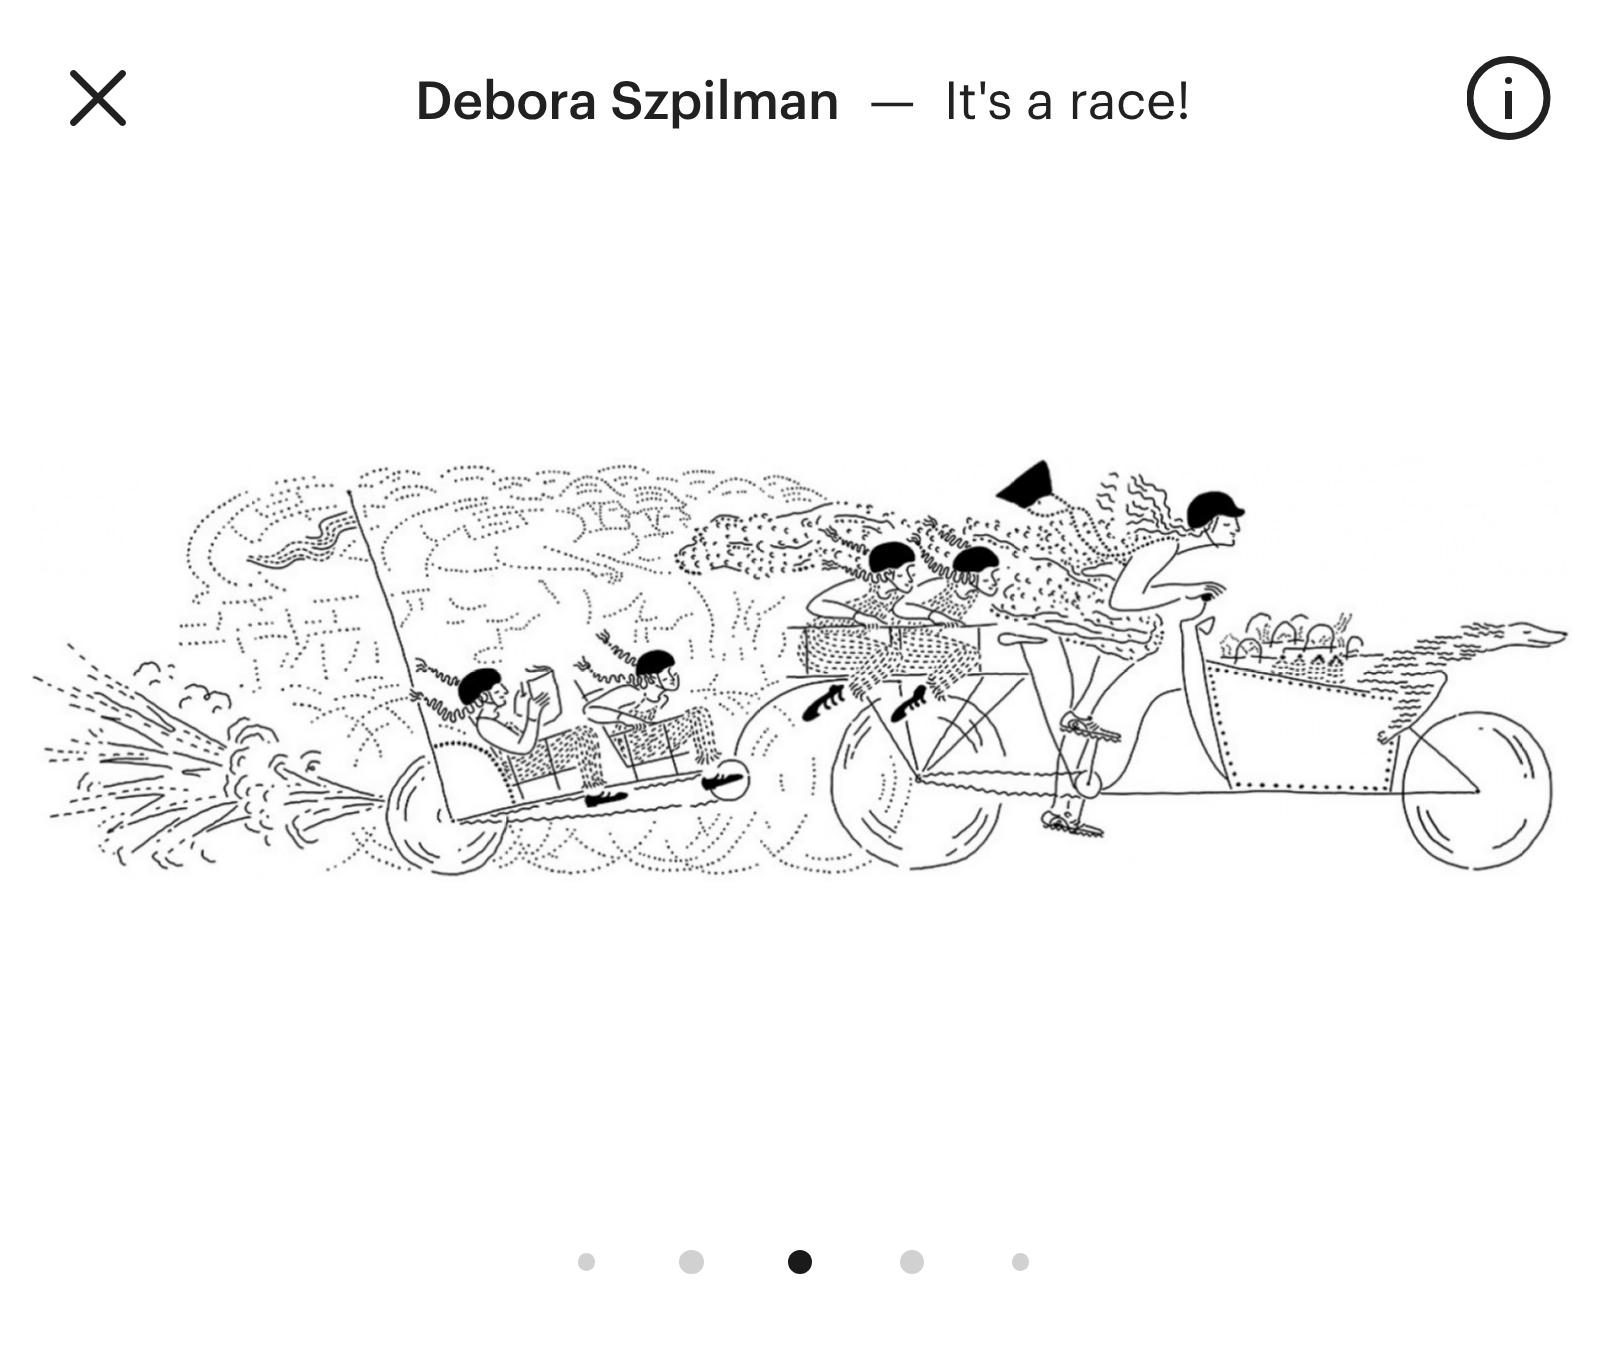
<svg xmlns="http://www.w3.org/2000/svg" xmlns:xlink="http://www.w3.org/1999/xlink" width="1604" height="1358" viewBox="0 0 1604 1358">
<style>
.cls-1{font:500 52.5px Graphik;fill:#212121}
.cls-2{font:52.5px Graphik;fill:#212121}
</style>
<defs>
<clipPath id="clip1"><rect x="1467" y="56" width="84" height="84"/></clipPath>
</defs>
<rect width="100%" height="100%" fill="#ffffff"/>
<image xlink:href="image0.png" x="70" y="70" width="56" height="56"/>
<g clip-path="url(#clip1)">
<circle fill="none" stroke="#212121" stroke-width="7" cx="1508.5" cy="98" r="38.5"/>
</g>
<rect fill="#212121" x="1505" y="91" width="7" height="28"/>
<circle fill="#212121" cx="1508.5" cy="80.5" r="3.5"/>
<image xlink:href="image1.png" x="31" y="457" width="1541" height="425"/>
<rect fill="#d1d1d1" x="578" y="1253" width="17" height="18" rx="8.5"/>
<rect fill="#d1d1d1" x="679" y="1250" width="25" height="24" rx="12"/>
<circle fill="#1a1a1a" cx="800" cy="1262" r="12"/>
<circle fill="#d1d1d1" cx="912" cy="1262" r="12"/>
<rect fill="#d1d1d1" x="1012" y="1253" width="17" height="18" rx="8.5"/>
<text class="cls-1" x="415" y="119">Debora Szpilman</text>
<text class="cls-2" x="869" y="119">—</text>
<text class="cls-2" x="944" y="119">It's a race!</text>
</svg>
